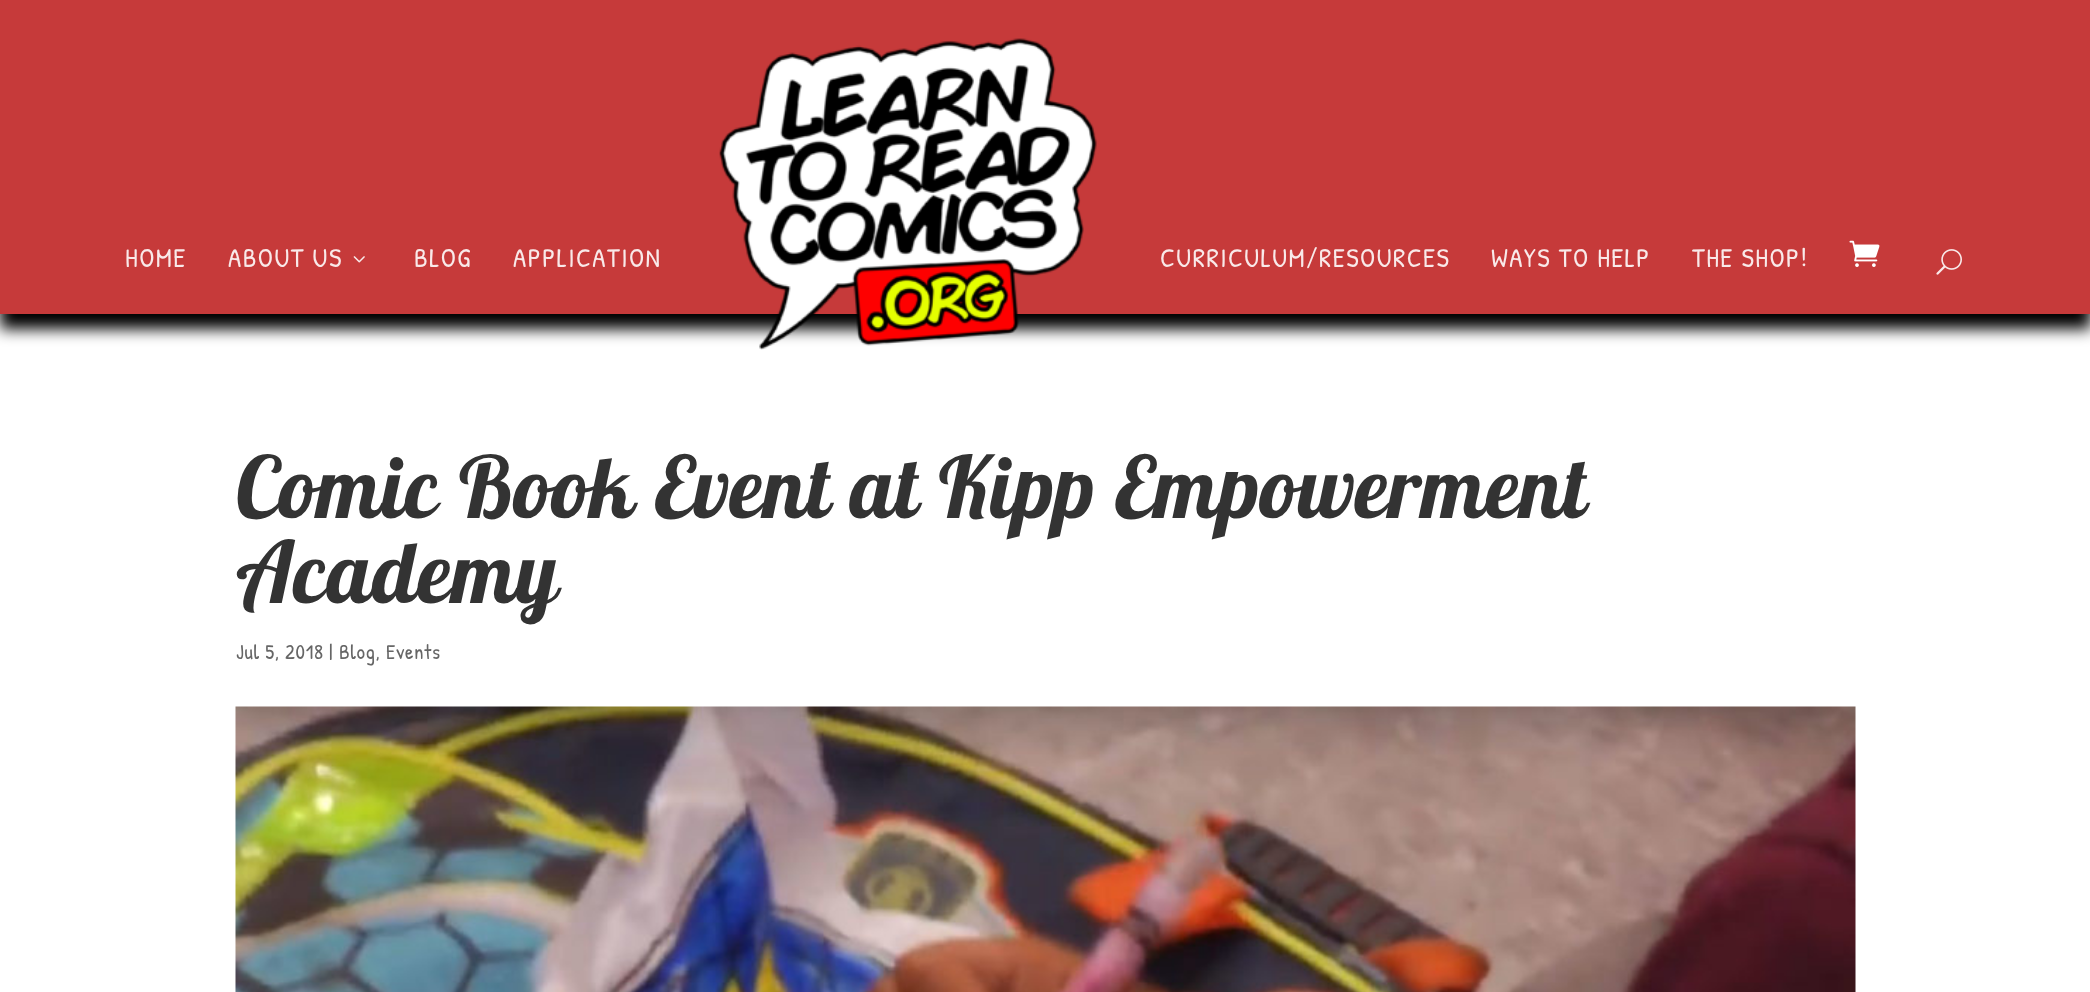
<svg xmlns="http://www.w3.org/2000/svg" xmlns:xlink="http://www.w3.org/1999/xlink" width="2090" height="992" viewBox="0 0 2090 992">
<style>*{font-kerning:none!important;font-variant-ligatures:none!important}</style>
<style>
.cls-1{font:27px Patrick Hand;letter-spacing:1.5px;fill:#f9e9e9}
.cls-2{font:85.5px Lobster;letter-spacing:0.65px;fill:#333333}
.cls-3{font:21px Patrick Hand;letter-spacing:0.65px;fill:#666666}
</style>
<rect width="100%" height="100%" fill="#ffffff"/>
<rect fill="#000000" filter="blur(7.5px)" x="0" y="15" width="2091" height="314"/>
<rect fill="#c63a3a" x="0" y="0" width="2090" height="314"/>
<image xlink:href="image0.png" x="353" y="256" width="12" height="7"/>
<image xlink:href="image1.png" x="719" y="38" width="378" height="312"/>
<image xlink:href="image2.png" x="1849" y="240" width="31" height="27"/>
<image xlink:href="image3.png" x="1936" y="249" width="26" height="26"/>
<image xlink:href="image4.png" x="235" y="706" width="1621" height="286"/>
<text class="cls-1" x="125" y="267">HOME</text>
<text class="cls-1" x="228" y="267">ABOUT US</text>
<text class="cls-1" x="414" y="267">BLOG</text>
<text class="cls-1" x="513" y="267">APPLICATION</text>
<text class="cls-1" x="1160" y="267">CURRICULUM/RESOURCES</text>
<text class="cls-1" x="1491" y="267">WAYS TO HELP</text>
<text class="cls-1" x="1692" y="267">THE SHOP!</text>
<text class="cls-2"><tspan x="236" y="518">Comic Book Event at Kipp Empowerment</tspan><tspan x="236" y="603">Academy</tspan></text>
<text class="cls-3" x="236" y="659">Jul 5, 2018 | Blog, Events</text>
</svg>
